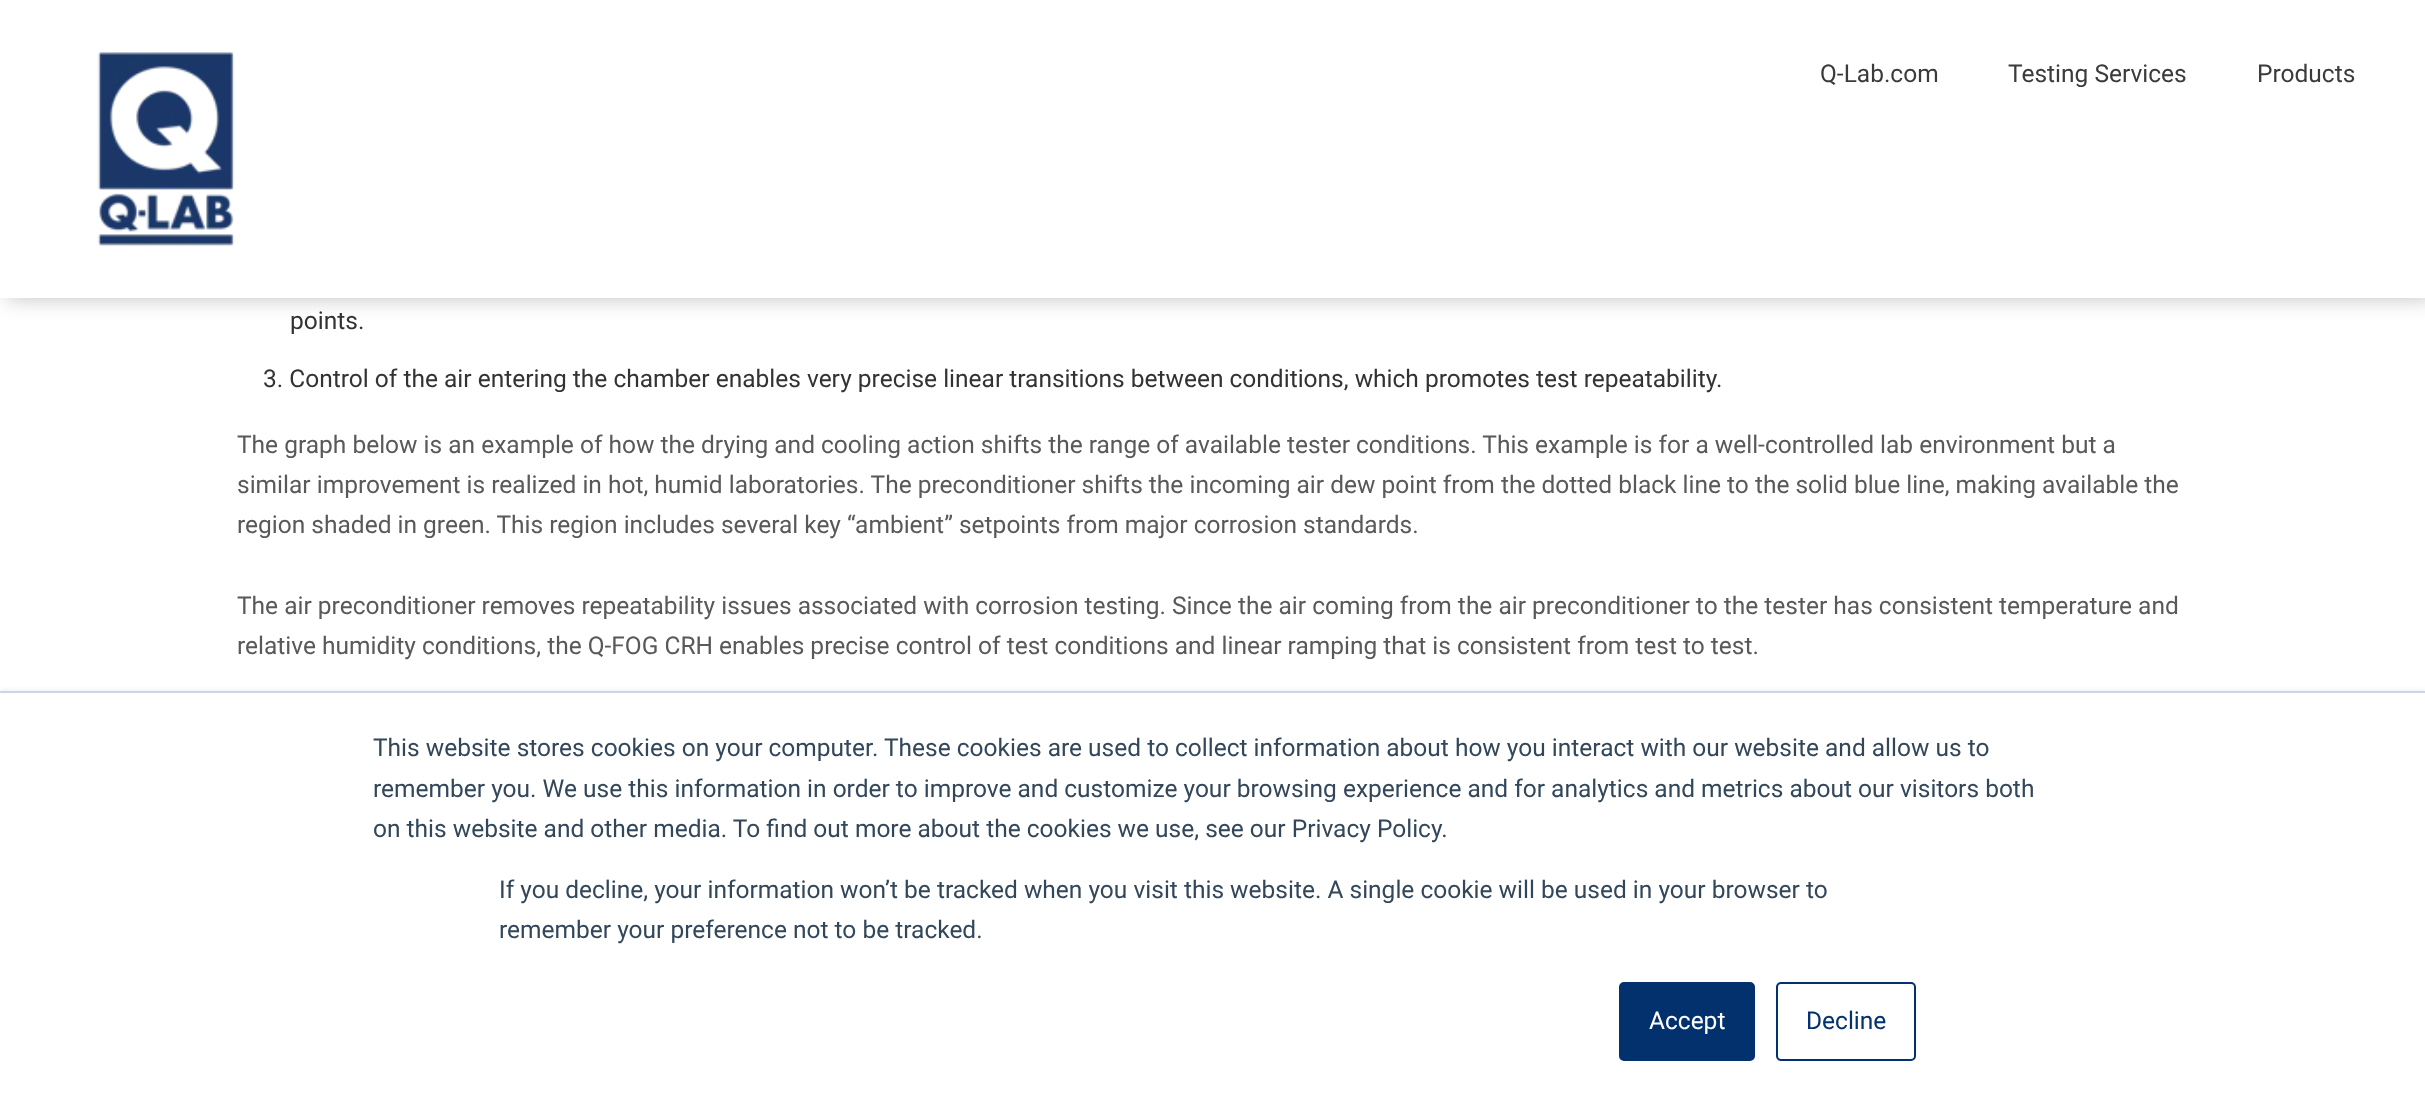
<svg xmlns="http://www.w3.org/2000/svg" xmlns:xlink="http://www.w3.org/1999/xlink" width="2425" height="1105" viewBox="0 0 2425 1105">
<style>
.cls-1{font:24.5px Roboto;fill:#3b3b3b}
.cls-2{font:24.5px Roboto;fill:#333333}
.cls-3{font:24.5px Roboto;fill:#595959}
.cls-4{font:24.5px Roboto;fill:#33475b}
.cls-5{font:24.5px Roboto;fill:#ffffff}
.cls-6{font:24.5px Roboto;fill:#02316e}
</style>
<rect width="100%" height="100%" fill="#ffffff"/>
<rect fill="#000000" fill-opacity="0.25" filter="blur(10.5px)" x="7" y="0" width="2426" height="298"/>
<rect fill="#ffffff" x="0" y="0" width="2425" height="298"/>
<image xlink:href="image0.png" x="97" y="52" width="137" height="194"/>
<rect fill="#eaf0f6" filter="blur(2.5px)" x="0" y="690" width="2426" height="414"/>
<rect fill="#ffffff" x="0" y="693" width="2425" height="412"/>
<rect fill="#cbd6e2" x="0" y="691" width="2425" height="2"/>
<rect fill="#02316e" stroke="#02316e" stroke-width="2" x="1620" y="983" width="134" height="77" rx="4"/>
<rect fill="none" stroke="#02316e" stroke-width="2" x="1777" y="983" width="138" height="77" rx="4"/>
<text class="cls-1" x="1820" y="82">Q-Lab.com</text>
<text class="cls-1" x="2008" y="82">Testing Services</text>
<text class="cls-1" x="2257" y="82">Products</text>
<text class="cls-2" x="290" y="329">points.</text>
<text class="cls-2" x="263" y="387">3. Control of the air entering the chamber enables very precise linear transitions between conditions, which promotes test repeatability.</text>
<text class="cls-3"><tspan x="237" y="453">The graph below is an example of how the drying and cooling action shifts the range of available tester conditions. This example is for a well-controlled lab environment but a</tspan><tspan x="237" y="493">similar improvement is realized in hot, humid laboratories. The preconditioner shifts the incoming air dew point from the dotted black line to the solid blue line, making available the</tspan><tspan x="237" y="533">region shaded in green. This region includes several key “ambient” setpoints from major corrosion standards.</tspan></text>
<text class="cls-3"><tspan x="237" y="614">The air preconditioner removes repeatability issues associated with corrosion testing. Since the air coming from the air preconditioner to the tester has consistent temperature and</tspan><tspan x="237" y="654">relative humidity conditions, the Q-FOG CRH enables precise control of test conditions and linear ramping that is consistent from test to test.</tspan></text>
<text class="cls-4"><tspan x="373" y="756">This website stores cookies on your computer. These cookies are used to collect information about how you interact with our website and allow us to</tspan><tspan x="373" y="797">remember you. We use this information in order to improve and customize your browsing experience and for analytics and metrics about our visitors both</tspan><tspan x="373" y="837">on this website and other media. To find out more about the cookies we use, see our Privacy Policy.</tspan></text>
<text class="cls-4"><tspan x="499" y="898">If you decline, your information won’t be tracked when you visit this website. A single cookie will be used in your browser to</tspan><tspan x="499" y="938">remember your preference not to be tracked.</tspan></text>
<text class="cls-5" x="1649" y="1029">Accept</text>
<text class="cls-6" x="1806" y="1029">Decline</text>
</svg>
